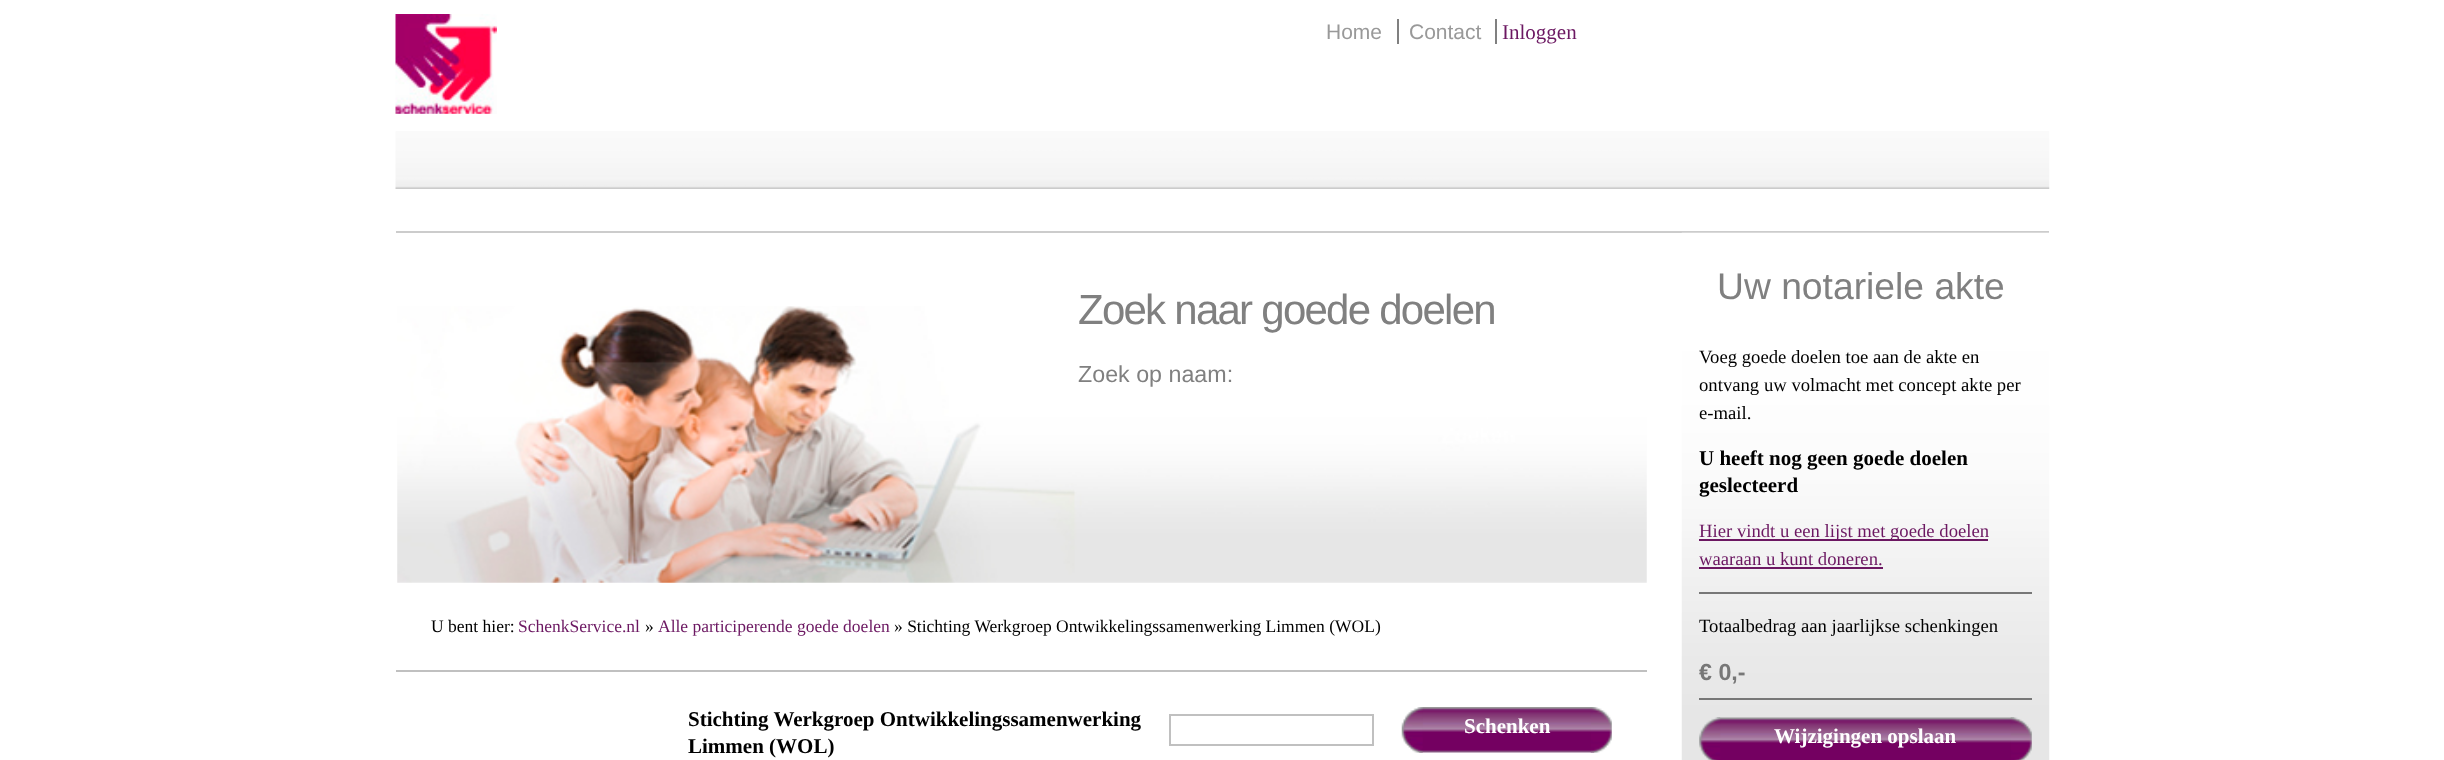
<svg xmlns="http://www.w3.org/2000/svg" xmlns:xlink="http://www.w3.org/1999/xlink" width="2444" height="760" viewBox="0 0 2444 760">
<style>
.cls-1{font:21px Liberation Sans;fill:#999999}
.cls-2{font:21px Liberation Serif;fill:#6c1862}
.cls-3{font:42px Liberation Sans;letter-spacing:-1.75px;fill:#808080}
.cls-4{font:23.25px Liberation Sans;fill:#808080}
.cls-5{font:37.25px Liberation Sans;fill:#808080}
.cls-6{font:18.7px Liberation Serif;fill:#000000}
.cls-7{font:bold 21px Liberation Serif;fill:#000000}
.cls-8{font:18.7px Liberation Serif;fill:#6c1862}
.cls-9{font:bold 23.25px Liberation Sans;fill:#777777}
.cls-10{font:bold 21px Liberation Serif;fill:#ffffff}
.cls-11{font:17.5px Liberation Serif;fill:#000000}
.cls-12{font:17.5px Liberation Serif;fill:#6c1862}
</style>
<rect width="100%" height="100%" fill="#ffffff"/>
<image xlink:href="image0.png" x="395" y="14" width="102" height="100"/>
<rect fill="#808080" x="1397" y="19" width="2" height="25"/>
<rect fill="#808080" x="1495" y="19" width="2" height="25"/>
<image xlink:href="image1.png" x="395" y="131" width="1655" height="58"/>
<rect fill="#cccccc" x="396" y="231" width="1653" height="2"/>
<image xlink:href="image2.png" x="397" y="306" width="1250" height="277"/>
<image xlink:href="image3.png" x="1681" y="232" width="369" height="528"/>
<rect fill="#6c1862" x="1699" y="539" width="289" height="2"/>
<rect fill="#6c1862" x="1699" y="567" width="184" height="2"/>
<rect fill="#777777" x="1699" y="592" width="333" height="2"/>
<rect fill="#777777" x="1699" y="698" width="333" height="2"/>
<image xlink:href="image4.png" x="1716" y="717" width="299" height="43"/>
<image xlink:href="image5.png" x="1699" y="717" width="22" height="43"/>
<image xlink:href="image6.png" x="2010" y="717" width="22" height="43"/>
<rect fill="#c0c0c0" x="396" y="670" width="1251" height="2"/>
<rect fill="none" stroke="#c0c0c0" stroke-width="2" x="1170" y="715" width="203" height="30"/>
<image xlink:href="image7.png" x="1419" y="707" width="176" height="46"/>
<image xlink:href="image8.png" x="1401" y="707" width="22" height="46"/>
<image xlink:href="image9.png" x="1590" y="707" width="22" height="46"/>
<text class="cls-1" x="1326" y="39">Home</text>
<text class="cls-1" x="1409" y="39">Contact</text>
<text class="cls-2" x="1502" y="39">Inloggen</text>
<text class="cls-3" x="1078" y="324">Zoek naar goede doelen</text>
<text class="cls-4" x="1078" y="382">Zoek op naam:</text>
<text class="cls-5" x="1717" y="299">Uw notariele akte</text>
<text class="cls-6"><tspan x="1699" y="363">Voeg goede doelen toe aan de akte en</tspan><tspan x="1699" y="391">ontvang uw volmacht met concept akte per</tspan><tspan x="1699" y="419">e-mail.</tspan></text>
<text class="cls-7"><tspan x="1699" y="465">U heeft nog geen goede doelen</tspan><tspan x="1699" y="492">geslecteerd</tspan></text>
<text class="cls-8"><tspan x="1699" y="537">Hier vindt u een lijst met goede doelen</tspan><tspan x="1699" y="565">waaraan u kunt doneren.</tspan></text>
<text class="cls-6" x="1699" y="632">Totaalbedrag aan jaarlijkse schenkingen</text>
<text class="cls-9" x="1699" y="680">€ 0,-</text>
<text class="cls-10" x="1774" y="743">Wijzigingen opslaan</text>
<text class="cls-11" x="431" y="632">U bent hier:</text>
<text class="cls-12" x="518" y="632">SchenkService.nl</text>
<text class="cls-11" x="645" y="632">»</text>
<text class="cls-12" x="658" y="632">Alle participerende goede doelen</text>
<text class="cls-11" x="894" y="632">» Stichting Werkgroep Ontwikkelingssamenwerking Limmen (WOL)</text>
<text class="cls-7" x="688" y="726">Stichting Werkgroep Ontwikkelingssamenwerking</text>
<text class="cls-10" x="1464" y="733">Schenken</text>
<text class="cls-7" x="688" y="753">Limmen (WOL)</text>
</svg>
